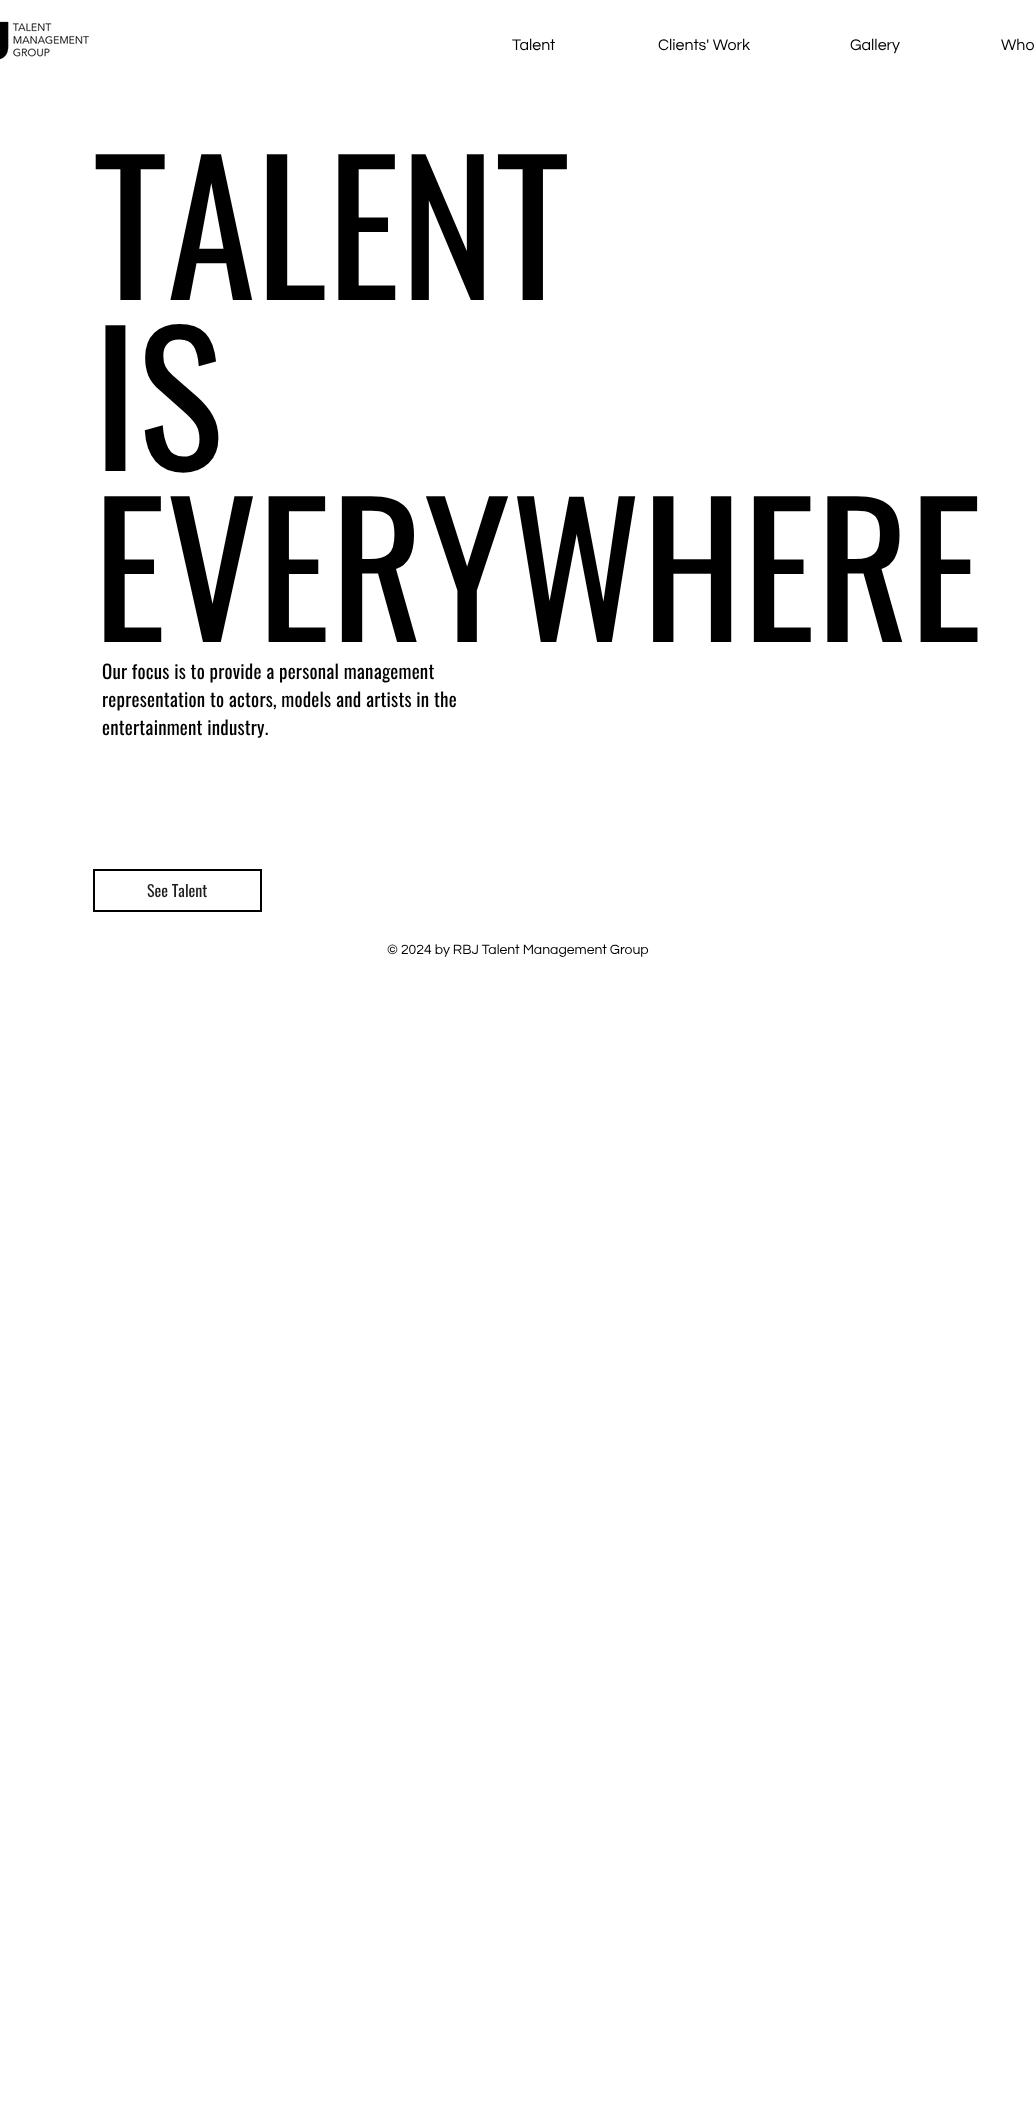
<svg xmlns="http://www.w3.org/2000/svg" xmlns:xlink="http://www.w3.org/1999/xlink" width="1036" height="2119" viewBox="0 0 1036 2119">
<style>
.cls-1{font:16px Questrial;fill:#000000}
.cls-2{font:180px Oswald;fill:#000000}
.cls-3{font:19px Oswald;letter-spacing:0.2px;fill:#000000}
.cls-4{font:16px Oswald;fill:#1d1d1d}
.cls-5{font:14px Questrial;fill:#000000}
</style>
<rect width="100%" height="100%" fill="#ffffff"/>
<image xlink:href="image0.png" x="0" y="21" width="89" height="39"/>
<rect fill="none" stroke="#000000" stroke-width="2" x="94" y="870" width="167" height="41"/>
<text class="cls-1" x="512" y="50">Talent</text>
<text class="cls-1" x="658" y="50">Clients' Work</text>
<text class="cls-1" x="850" y="50">Gallery</text>
<text class="cls-1" x="1001" y="50">Who</text>
<text class="cls-2"><tspan x="93" y="300">TALENT</tspan><tspan x="93" y="471">IS</tspan><tspan x="93" y="642">EVERYWHERE</tspan></text>
<text class="cls-3"><tspan x="102" y="679">Our focus is to provide a personal management</tspan><tspan x="102" y="707">representation to actors, models and artists in the</tspan><tspan x="102" y="735">entertainment industry.</tspan></text>
<text class="cls-4" x="147" y="897">See Talent</text>
<text class="cls-5" x="387" y="954">© 2024 by RBJ Talent Management Group</text>
</svg>
